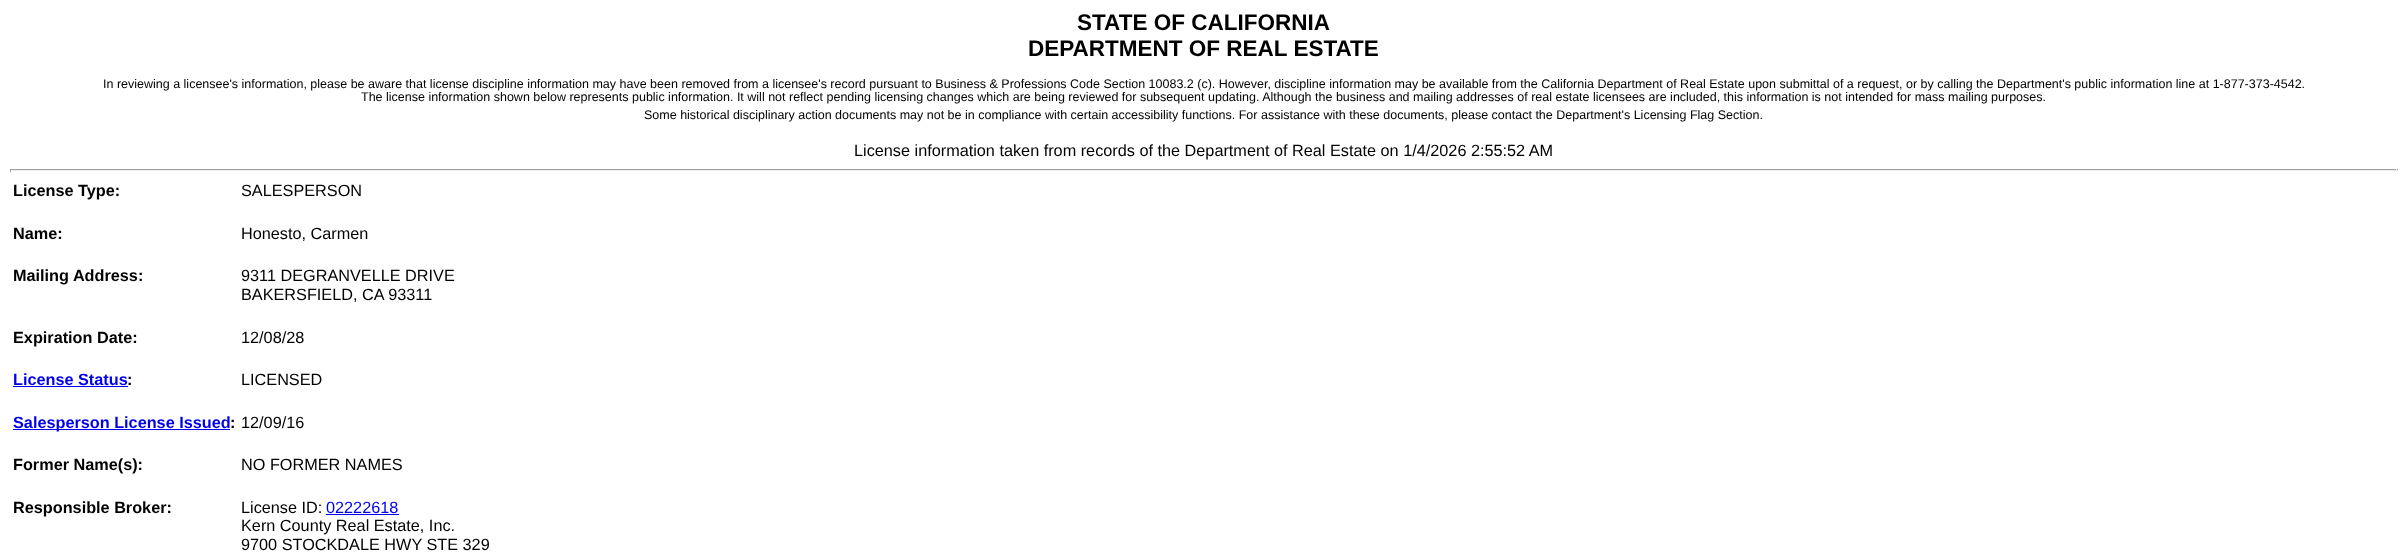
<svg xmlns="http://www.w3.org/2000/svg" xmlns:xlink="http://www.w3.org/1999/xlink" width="2407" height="556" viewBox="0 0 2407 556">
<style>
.cls-1{font:bold 22.5px Liberation Sans;fill:#000000}
.cls-2{font:12.5px Liberation Sans;fill:#000000}
.cls-3{font:16.25px Liberation Sans;fill:#000000}
.cls-4{font:bold 16.25px Liberation Sans;fill:#000000}
.cls-5{font:bold 16.25px Liberation Sans;fill:#0000ee}
.cls-6{font:16.25px Liberation Sans;fill:#0000ee}
</style>
<rect width="100%" height="100%" fill="#ffffff"/>
<rect fill="#9f9f9f" x="10" y="169" width="2388" height="1"/>
<rect fill="#eeeeee" x="2396" y="169" width="1" height="3"/>
<rect fill="#eeeeee" x="10" y="170" width="2388" height="1"/>
<rect fill="#9f9f9f" x="10" y="169" width="1" height="3"/>
<rect fill="#0000ee" x="13" y="386" width="115" height="1"/>
<rect fill="#0000ee" x="13" y="429" width="217" height="1"/>
<rect fill="#0000ee" x="326" y="514" width="73" height="1"/>
<text class="cls-1" x="1077" y="30">STATE OF CALIFORNIA</text>
<text class="cls-1" x="1028" y="56">DEPARTMENT OF REAL ESTATE</text>
<text class="cls-2" x="103" y="88">In reviewing a licensee's information, please be aware that license discipline information may have been removed from a licensee's record pursuant to Business &amp; Professions Code Section 10083.2 (c). However, discipline information may be available from the California Department of Real Estate upon submittal of a request, or by calling the Department's public information line at 1-877-373-4542.</text>
<text class="cls-2" x="361" y="101">The license information shown below represents public information. It will not reflect pending licensing changes which are being reviewed for subsequent updating. Although the business and mailing addresses of real estate licensees are included, this information is not intended for mass mailing purposes.</text>
<text class="cls-2" x="644" y="119">Some historical disciplinary action documents may not be in compliance with certain accessibility functions. For assistance with these documents, please contact the Department's Licensing Flag Section.</text>
<text class="cls-3" x="854" y="156">License information taken from records of the Department of Real Estate on 1/4/2026 2:55:52 AM</text>
<text class="cls-4" x="13" y="196">License Type:</text>
<text class="cls-3" x="241" y="196">SALESPERSON</text>
<text class="cls-4" x="13" y="239">Name:</text>
<text class="cls-3" x="241" y="239">Honesto, Carmen</text>
<text class="cls-4" x="13" y="281">Mailing Address:</text>
<text class="cls-3"><tspan x="241" y="281">9311 DEGRANVELLE DRIVE</tspan><tspan x="241" y="300">BAKERSFIELD, CA 93311</tspan></text>
<text class="cls-4" x="13" y="343">Expiration Date:</text>
<text class="cls-3" x="241" y="343">12/08/28</text>
<text class="cls-5" x="13" y="385">License Status</text>
<text class="cls-4" x="127" y="385">:</text>
<text class="cls-3" x="241" y="385">LICENSED</text>
<text class="cls-5" x="13" y="428">Salesperson License Issued</text>
<text class="cls-4" x="230" y="428">:</text>
<text class="cls-3" x="241" y="428">12/09/16</text>
<text class="cls-4" x="13" y="470">Former Name(s):</text>
<text class="cls-3" x="241" y="470">NO FORMER NAMES</text>
<text class="cls-4" x="13" y="513">Responsible Broker:</text>
<text class="cls-3" x="241" y="513">License ID:</text>
<text class="cls-6" x="326" y="513">02222618</text>
<text class="cls-3"><tspan x="241" y="531">Kern County Real Estate, Inc.</tspan><tspan x="241" y="550">9700 STOCKDALE HWY STE 329</tspan></text>
</svg>
